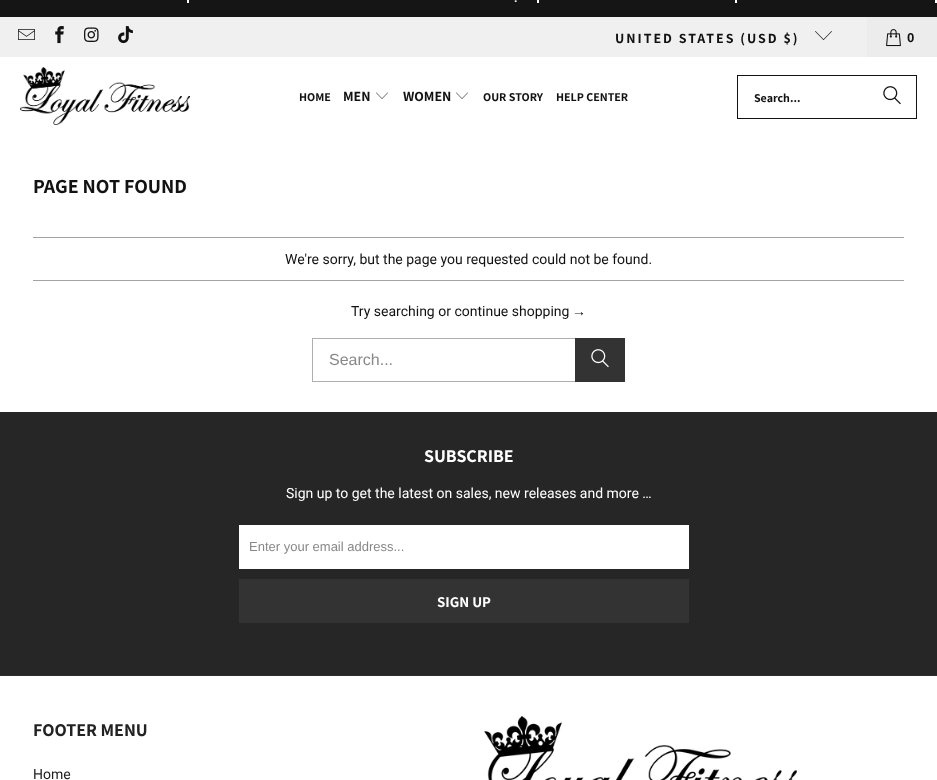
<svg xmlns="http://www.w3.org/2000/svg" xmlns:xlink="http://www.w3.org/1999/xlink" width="937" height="780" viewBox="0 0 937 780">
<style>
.cls-1{font:bold 12px Roboto;fill:#ffffff}
.cls-2{font:bold 14px Assistant;letter-spacing:2px;fill:#121212}
.cls-3{font:bold 12px Assistant;fill:#121212}
.cls-4{font:bold 14px Assistant;fill:#121212}
.cls-5{font:bold 20px Assistant;fill:#121212}
.cls-6{font:14px Roboto;fill:#121212}
.cls-7{font:14px Liberation Sans;fill:#121212}
.cls-8{font:16px Liberation Sans;fill:#888888}
.cls-9{font:bold 18px Assistant;fill:#ffffff}
.cls-10{font:14px Roboto;fill:#ffffff}
.cls-11{font:13px Liberation Sans;fill:#888888}
.cls-12{font:bold 15px Assistant;fill:#ffffff}
.cls-13{font:bold 18px Assistant;fill:#222222}
.cls-14{font:14px Roboto;fill:#222222}
</style>
<rect width="100%" height="100%" fill="#ffffff"/>
<rect fill="#151515" x="0" y="0" width="937" height="17"/>
<rect fill="#ffffff" x="187" y="0" width="2" height="3"/>
<rect fill="#ffffff" x="537" y="0" width="2" height="3"/>
<rect fill="#ffffff" x="735" y="0" width="2" height="3"/>
<rect fill="#ffffff" x="935" y="0" width="2" height="3"/>
<rect fill="#f0f0f0" x="0" y="17" width="867" height="40"/>
<image xlink:href="image0.png" x="18" y="29" width="17" height="11"/>
<image xlink:href="image1.png" x="55" y="26" width="9" height="18"/>
<image xlink:href="image2.png" x="84" y="27" width="15" height="15"/>
<image xlink:href="image3.png" x="118" y="26" width="15" height="18"/>
<image xlink:href="image4.png" x="815" y="31" width="17" height="10"/>
<rect fill="#ececec" x="867" y="17" width="70" height="40"/>
<image xlink:href="image5.png" x="886" y="29" width="15" height="18"/>
<image xlink:href="image6.png" x="20" y="67" width="170" height="58"/>
<image xlink:href="image7.png" x="376" y="92" width="12" height="7"/>
<image xlink:href="image7.png" x="456" y="92" width="12" height="7"/>
<rect fill="none" stroke="#121212" x="737.5" y="75.5" width="179" height="43"/>
<image xlink:href="image8.png" x="883" y="86" width="18" height="19"/>
<rect fill="#a3a3a3" x="33" y="237" width="871" height="1"/>
<rect fill="#a3a3a3" x="33" y="280" width="871" height="1"/>
<rect fill="none" stroke="#afafaf" x="312.5" y="338.5" width="312" height="43"/>
<rect fill="#333333" x="575" y="338" width="50" height="44"/>
<image xlink:href="image9.png" x="591" y="349" width="18" height="19"/>
<rect fill="#262626" x="0" y="412" width="937" height="263"/>
<rect fill="#ffffff" x="239" y="525" width="450" height="44"/>
<rect fill="#333333" x="239" y="579" width="450" height="44"/>
<rect fill="#2c2c2c" x="0" y="675" width="937" height="1"/>
<image xlink:href="image10.png" x="484" y="716" width="313" height="64"/>
<text class="cls-1" x="514" y="2">.</text>
<text class="cls-2" x="615" y="43">UNITED STATES (USD $)</text>
<text class="cls-2" x="907" y="42">0</text>
<text class="cls-3" x="299" y="101">HOME</text>
<text class="cls-4" x="343" y="101">MEN</text>
<text class="cls-4" x="403" y="101">WOMEN</text>
<text class="cls-3" x="483" y="101">OUR STORY</text>
<text class="cls-3" x="556" y="101">HELP CENTER</text>
<text class="cls-3" x="754" y="102">Search...</text>
<text class="cls-5" x="33" y="193">PAGE NOT FOUND</text>
<text class="cls-6" x="285" y="264">We're sorry, but the page you requested could not be found.</text>
<text class="cls-6" x="351" y="316">Try searching or continue shopping</text>
<text class="cls-7" x="572" y="316">→</text>
<text class="cls-8" x="329" y="365">Search...</text>
<text class="cls-9" x="424" y="462">SUBSCRIBE</text>
<text class="cls-10" x="286" y="498">Sign up to get the latest on sales, new releases and more …</text>
<text class="cls-11" x="249" y="551">Enter your email address...</text>
<text class="cls-12" x="437" y="607">SIGN UP</text>
<text class="cls-13" x="33" y="736">FOOTER MENU</text>
<text class="cls-14" x="33" y="779">Home</text>
</svg>
